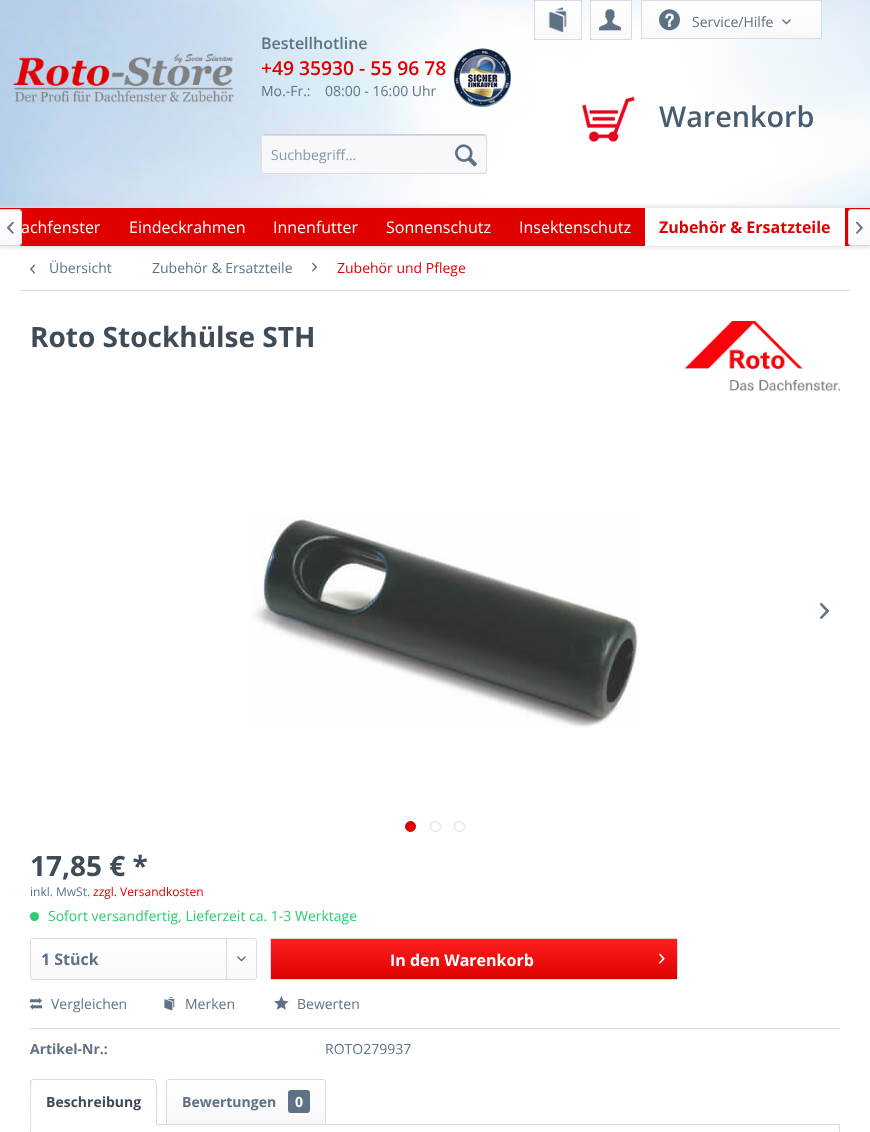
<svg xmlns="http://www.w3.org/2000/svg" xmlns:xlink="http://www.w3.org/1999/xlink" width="870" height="1132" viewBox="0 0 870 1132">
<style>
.cls-1{font:600 16px Open Sans;fill:#5f7285}
.cls-2{font:600 19.25px Open Sans;fill:#e10000}
.cls-3{font:14px Open Sans;fill:#5f7285}
.cls-4{font:600 28.75px Open Sans;fill:#4a5d6e}
.cls-5{font:14px Open Sans;fill:#8798a9}
.cls-6{font:16px Open Sans;fill:#ffffff}
.cls-7{font:bold 16px Open Sans;fill:#e10000}
.cls-8{font:14px Open Sans;fill:#e10000}
.cls-9{font:bold 28px Open Sans;fill:#3f4c58}
.cls-10{font:12px Open Sans;fill:#5f7285}
.cls-11{font:12px Open Sans;fill:#e10000}
.cls-12{font:14px Open Sans;fill:#2ecc71}
.cls-13{font:bold 16px Open Sans;fill:#5f7285}
.cls-14{font:bold 16px Open Sans;fill:#ffffff}
.cls-15{font:bold 14px Open Sans;fill:#5f7285}
.cls-16{font:bold 14px Open Sans;fill:#3f4c58}
.cls-17{font:bold 14px Open Sans;fill:#ffffff}
</style>
<defs>
<linearGradient id="g1" gradientUnits="userSpaceOnUse" x1="558" y1="1" x2="558" y2="39"><stop offset="0" stop-color="#ffffff"/><stop offset="1" stop-color="#f8f8fa"/></linearGradient>
<linearGradient id="g2" gradientUnits="userSpaceOnUse" x1="611" y1="1" x2="611" y2="39"><stop offset="0" stop-color="#ffffff"/><stop offset="1" stop-color="#f8f8fa"/></linearGradient>
<linearGradient id="g3" gradientUnits="userSpaceOnUse" x1="732" y1="1" x2="732" y2="38"><stop offset="0" stop-color="#ffffff"/><stop offset="1" stop-color="#f8f8fa"/></linearGradient>
<linearGradient id="g4" gradientUnits="userSpaceOnUse" x1="10" y1="210" x2="11" y2="245"><stop offset="0" stop-color="#ffffff"/><stop offset="1" stop-color="#f8f8fa"/></linearGradient>
<linearGradient id="g5" gradientUnits="userSpaceOnUse" x1="860" y1="210" x2="860" y2="245"><stop offset="0" stop-color="#ffffff"/><stop offset="1" stop-color="#f8f8fa"/></linearGradient>
<linearGradient id="g6" gradientUnits="userSpaceOnUse" x1="144" y1="939" x2="144" y2="979"><stop offset="0" stop-color="#ffffff"/><stop offset="1" stop-color="#f8f8fa"/></linearGradient>
<linearGradient id="g7" gradientUnits="userSpaceOnUse" x1="474" y1="939" x2="474" y2="979"><stop offset="0" stop-color="#ff1f1f"/><stop offset="1" stop-color="#e10000"/></linearGradient>
<linearGradient id="g8" gradientUnits="userSpaceOnUse" x1="246" y1="1080" x2="246" y2="1124"><stop offset="0" stop-color="#ffffff"/><stop offset="1" stop-color="#f8f8fa"/></linearGradient>
</defs>
<rect width="100%" height="100%" fill="#ffffff"/>
<image xlink:href="image0.png" x="0" y="0" width="870" height="208"/>
<image xlink:href="image1.png" x="13" y="53" width="221" height="50"/>
<image xlink:href="image2.png" x="453" y="48" width="58" height="59"/>
<rect fill="url(#g1)" x="535" y="1" width="46" height="38"/>
<rect fill="none" stroke="#dadae5" x="534.5" y="0.5" width="47" height="39"/>
<image xlink:href="image3.png" x="548" y="7" width="19" height="26"/>
<rect fill="url(#g2)" x="591" y="1" width="40" height="38"/>
<rect fill="none" stroke="#dadae5" x="590.5" y="0.5" width="41" height="39"/>
<image xlink:href="image4.png" x="599" y="9" width="22" height="22"/>
<rect fill="url(#g3)" x="642" y="1" width="179" height="37"/>
<rect fill="none" stroke="#dadae5" x="641.5" y="0.5" width="180" height="38"/>
<image xlink:href="image5.png" x="659" y="9" width="21" height="22"/>
<image xlink:href="image6.png" x="782" y="19" width="9" height="6"/>
<image xlink:href="image7.png" x="582" y="96" width="53" height="46"/>
<rect fill="#f8f8fa" x="261" y="134" width="226" height="40" rx="3"/>
<path fill="#dadae5" d="M264 136H484C485 136 486 137 486 138C486 137 486 135 484 135H264L263 136L262 138C262 137 263 136 264 136Z"/>
<path fill="none" stroke="#cbcbdb" d="M262 135L264 134.5H484L486 135"/>
<path fill="none" stroke="#dadae5" d="M486 135C487.5 137 486.5 151 486.5 154V165.5C486.5 167 488 173.5 484 173.5H264C260 173.5 261.5 167 261.5 165.5V154C261.5 151 260.5 137 262 135"/>
<image xlink:href="image8.png" x="455" y="144" width="22" height="23"/>
<rect fill="#dadae5" filter="blur(2px)" x="-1" y="207" width="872" height="40"/>
<rect fill="#e10000" x="0" y="208" width="870" height="38"/>
<path fill="url(#g4)" d="M0 210H19C20 210 21 211 21 212V243C21 244 20 245 19 245H0Z"/>
<path fill="#dadae5" fill-rule="evenodd" d="M0 209H19C20.5 209 22 210.5 22 212V243C22 244.5 20.5 246 19 246H0ZM0 210H19C20 210 21 211 21 212V243C21 244 20 245 19 245H0Z"/>
<image xlink:href="image9.png" x="7" y="221" width="7" height="13"/>
<rect fill="#ffffff" x="645" y="208" width="200" height="38"/>
<path fill="url(#g5)" d="M851 210H870V245H851C850 245 849 244 849 243V212C849 211 850 210 851 210Z"/>
<path fill="#dadae5" fill-rule="evenodd" d="M851 209H870V246H851C849.5 246 848 244.5 848 243V212C848 210.5 849.5 209 851 209ZM851 210H870V245H851C850 245 849 244 849 243V212C849 211 850 210 851 210Z"/>
<image xlink:href="image10.png" x="856" y="221" width="7" height="13"/>
<rect fill="#dadae5" x="20" y="290" width="830" height="1"/>
<image xlink:href="image11.png" x="30" y="264" width="5" height="10"/>
<image xlink:href="image12.png" x="312" y="262" width="5" height="10"/>
<image xlink:href="image13.png" x="685" y="321" width="155" height="70"/>
<image xlink:href="image14.png" x="251" y="515" width="388" height="213"/>
<image xlink:href="image15.png" x="820" y="603" width="9" height="16"/>
<circle fill="#e10000" stroke="#e10000" cx="410.5" cy="826.5" r="5"/>
<circle fill="none" stroke="#dadae5" cx="435.5" cy="826.5" r="5"/>
<circle fill="none" stroke="#dadae5" cx="459.5" cy="826.5" r="5"/>
<circle fill="#2ecc71" cx="34.5" cy="916.5" r="4.5"/>
<rect fill="url(#g6)" x="31" y="939" width="225" height="40" rx="2"/>
<rect fill="none" stroke="#dadae5" x="30.5" y="938.5" width="226" height="41" rx="2.5"/>
<rect fill="#dadae5" x="226" y="939" width="1" height="40"/>
<image xlink:href="image16.png" x="237" y="956" width="9" height="6"/>
<rect fill="url(#g7)" x="271" y="939" width="406" height="40"/>
<rect fill="none" stroke="#dadae5" x="270.5" y="938.5" width="407" height="41"/>
<image xlink:href="image17.png" x="659" y="953" width="6" height="11"/>
<rect fill="#dadae5" x="30" y="1028" width="810" height="1"/>
<image xlink:href="image18.png" x="30" y="997" width="12" height="13"/>
<image xlink:href="image19.png" x="164" y="996" width="11" height="15"/>
<image xlink:href="image20.png" x="274" y="996" width="15" height="14"/>
<rect fill="none" stroke="#dadae5" x="30.5" y="1124.5" width="809" height="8"/>
<path fill="#ffffff" d="M33 1079H154C155.5 1079 157 1080.5 157 1082V1125H30V1082C30 1080.5 31.5 1079 33 1079Z"/>
<path fill="#dadae5" d="M33 1079L31 1080L32 1081L33 1080H154L155 1081L156 1080L154 1079Z"/>
<path fill="#dadae5" d="M157 1125C157 1120 158 1082 156 1080L155 1081C157 1082 156 1119 156 1124Z"/>
<path fill="#ffffff" d="M157 1125L156 1124H31L30 1125Z"/>
<path fill="#dadae5" d="M30 1125L31 1124C31 1119 30 1082 32 1081L31 1080L30 1082Z"/>
<path fill="url(#g8)" d="M169 1080H323C324 1080 325 1081 325 1082V1124H167V1082C167 1081 168 1080 169 1080Z"/>
<path fill="none" stroke="#dadae5" d="M169 1079.5H323C324.5 1079.5 325.5 1080.5 325.5 1082V1124.5H166.5V1082C166.5 1080.5 167.5 1079.5 169 1079.5Z"/>
<rect fill="#5f7285" x="288" y="1090" width="22" height="23" rx="3"/>
<text class="cls-1" x="261" y="49">Bestellhotline</text>
<text class="cls-2" x="261" y="75">+49 35930 - 55 96 78</text>
<text class="cls-3" x="261" y="96">Mo.-Fr.:</text>
<text class="cls-3" x="325" y="96">08:00 - 16:00 Uhr</text>
<text class="cls-3" x="692" y="27">Service/Hilfe</text>
<text class="cls-4" x="659" y="127">Warenkorb</text>
<text class="cls-5" x="271" y="160">Suchbegriff...</text>
<text class="cls-6" x="21" y="233">achfenster</text>
<text class="cls-6" x="129" y="233">Eindeckrahmen</text>
<text class="cls-6" x="273" y="233">Innenfutter</text>
<text class="cls-6" x="386" y="233">Sonnenschutz</text>
<text class="cls-6" x="519" y="233">Insektenschutz</text>
<text class="cls-7" x="659" y="233">Zubehör &amp; Ersatzteile</text>
<text class="cls-3" x="49" y="273">Übersicht</text>
<text class="cls-3" x="152" y="273">Zubehör &amp; Ersatzteile</text>
<text class="cls-8" x="337" y="273">Zubehör und Pflege</text>
<text class="cls-9" x="30" y="347">Roto Stockhülse STH</text>
<text class="cls-9" x="30" y="876">17,85 € *</text>
<text class="cls-10" x="30" y="896">inkl. MwSt.</text>
<text class="cls-11" x="93" y="896">zzgl. Versandkosten</text>
<text class="cls-12" x="48" y="921">Sofort versandfertig, Lieferzeit ca. 1-3 Werktage</text>
<text class="cls-13" x="41" y="965">1 Stück</text>
<text class="cls-14" x="390" y="966">In den Warenkorb</text>
<text class="cls-3" x="51" y="1009">Vergleichen</text>
<text class="cls-3" x="185" y="1009">Merken</text>
<text class="cls-3" x="297" y="1009">Bewerten</text>
<text class="cls-15" x="30" y="1054">Artikel-Nr.:</text>
<text class="cls-3" x="325" y="1054">ROTO279937</text>
<text class="cls-16" x="46" y="1107">Beschreibung</text>
<text class="cls-15" x="182" y="1107">Bewertungen</text>
<text class="cls-17" x="295" y="1107">0</text>
</svg>
